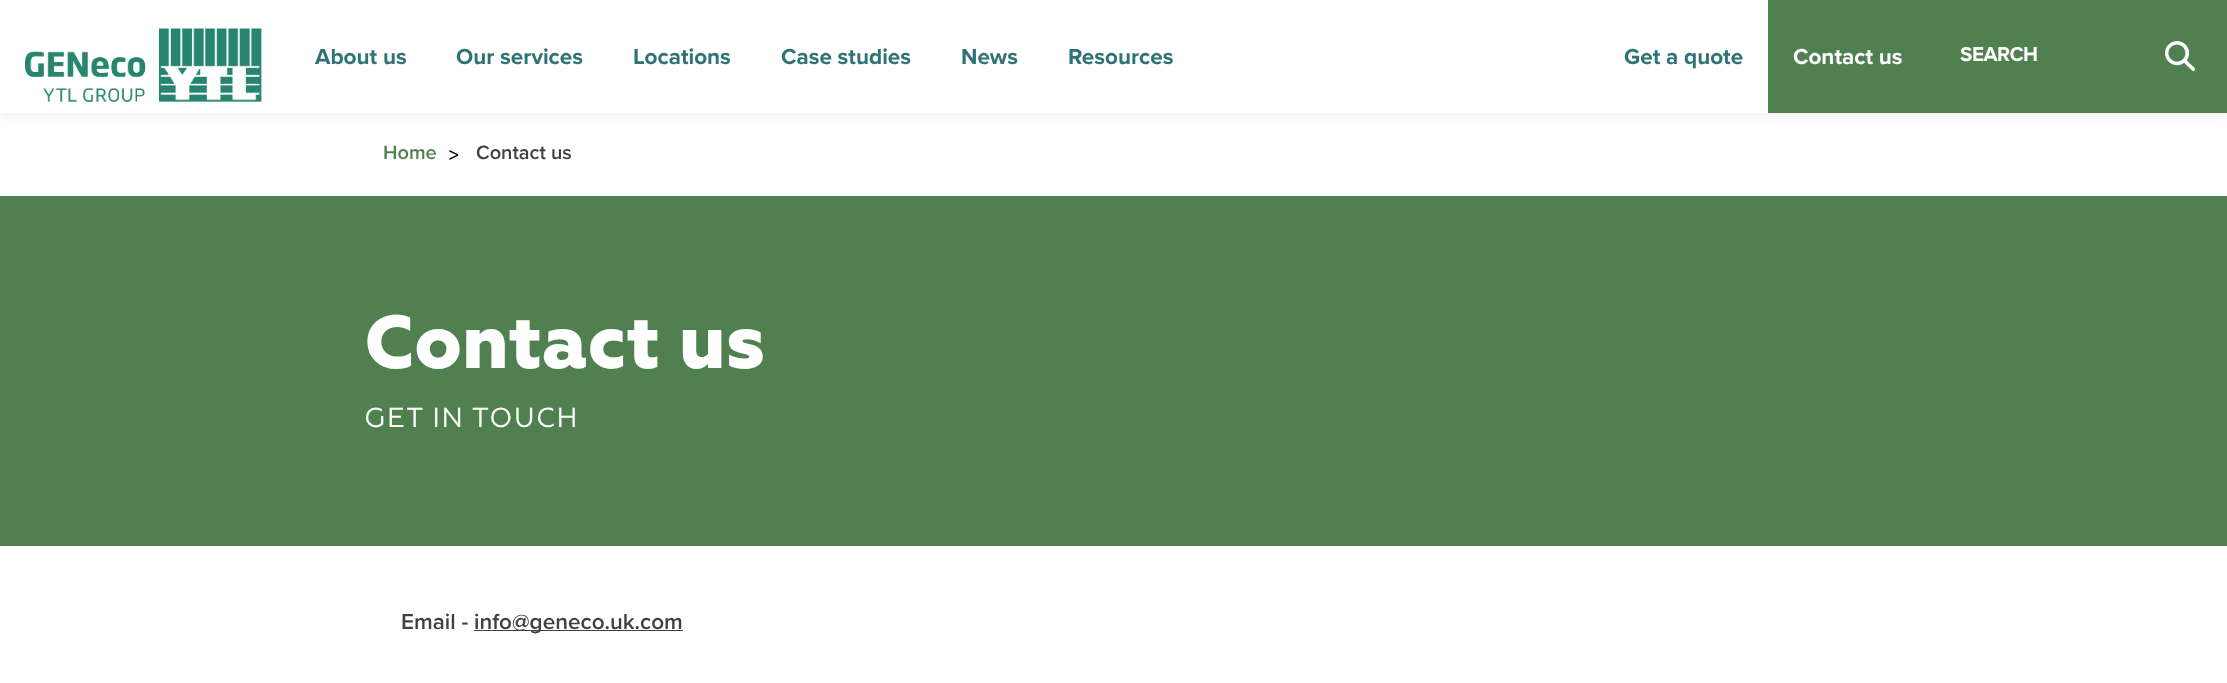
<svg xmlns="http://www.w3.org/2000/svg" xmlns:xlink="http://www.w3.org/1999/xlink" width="2227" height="683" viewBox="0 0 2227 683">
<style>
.cls-1{font:22.5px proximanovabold;fill:#2f7376}
.cls-2{font:22.5px proximanovabold;fill:#ffffff}
.cls-3{font:bold 20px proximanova;fill:#ffffff}
.cls-4{font:20px proximanova;fill:#508050}
.cls-5{font:20px proximanova;fill:#404041}
.cls-6{font:800 75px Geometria;fill:#ffffff}
.cls-7{font:27.5px Geometria;letter-spacing:1.5px;fill:#ffffff}
.cls-8{font:22.5px proximanova;fill:#404041}
</style>
<rect width="100%" height="100%" fill="#ffffff"/>
<rect fill="#000000" fill-opacity="0.07" filter="blur(6px)" x="0" y="3" width="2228" height="112"/>
<rect fill="#ffffff" x="0" y="0" width="1768" height="113"/>
<image xlink:href="image0.png" x="25" y="28" width="237" height="74"/>
<rect fill="#508050" x="1768" y="0" width="459" height="113"/>
<image xlink:href="image1.png" x="2165" y="41" width="30" height="30"/>
<image xlink:href="image2.png" x="449" y="150" width="10" height="10"/>
<rect fill="#508050" x="0" y="196" width="2227" height="350"/>
<rect fill="#404041" x="474" y="630" width="209" height="1"/>
<text class="cls-1" x="315" y="64">About us</text>
<text class="cls-1" x="456" y="64">Our services</text>
<text class="cls-1" x="633" y="64">Locations</text>
<text class="cls-1" x="781" y="64">Case studies</text>
<text class="cls-1" x="961" y="64">News</text>
<text class="cls-1" x="1068" y="64">Resources</text>
<text class="cls-1" x="1624" y="64">Get a quote</text>
<text class="cls-2" x="1793" y="64">Contact us</text>
<text class="cls-3" x="1960" y="61">SEARCH</text>
<text class="cls-4" x="383" y="159">Home</text>
<text class="cls-5" x="476" y="159">Contact us</text>
<text class="cls-6" x="364" y="368">Contact us</text>
<text class="cls-7" x="364" y="427">GET IN TOUCH</text>
<text class="cls-8" x="401" y="629">Email -</text>
<text class="cls-8" x="474" y="629">info@geneco.uk.com</text>
</svg>
